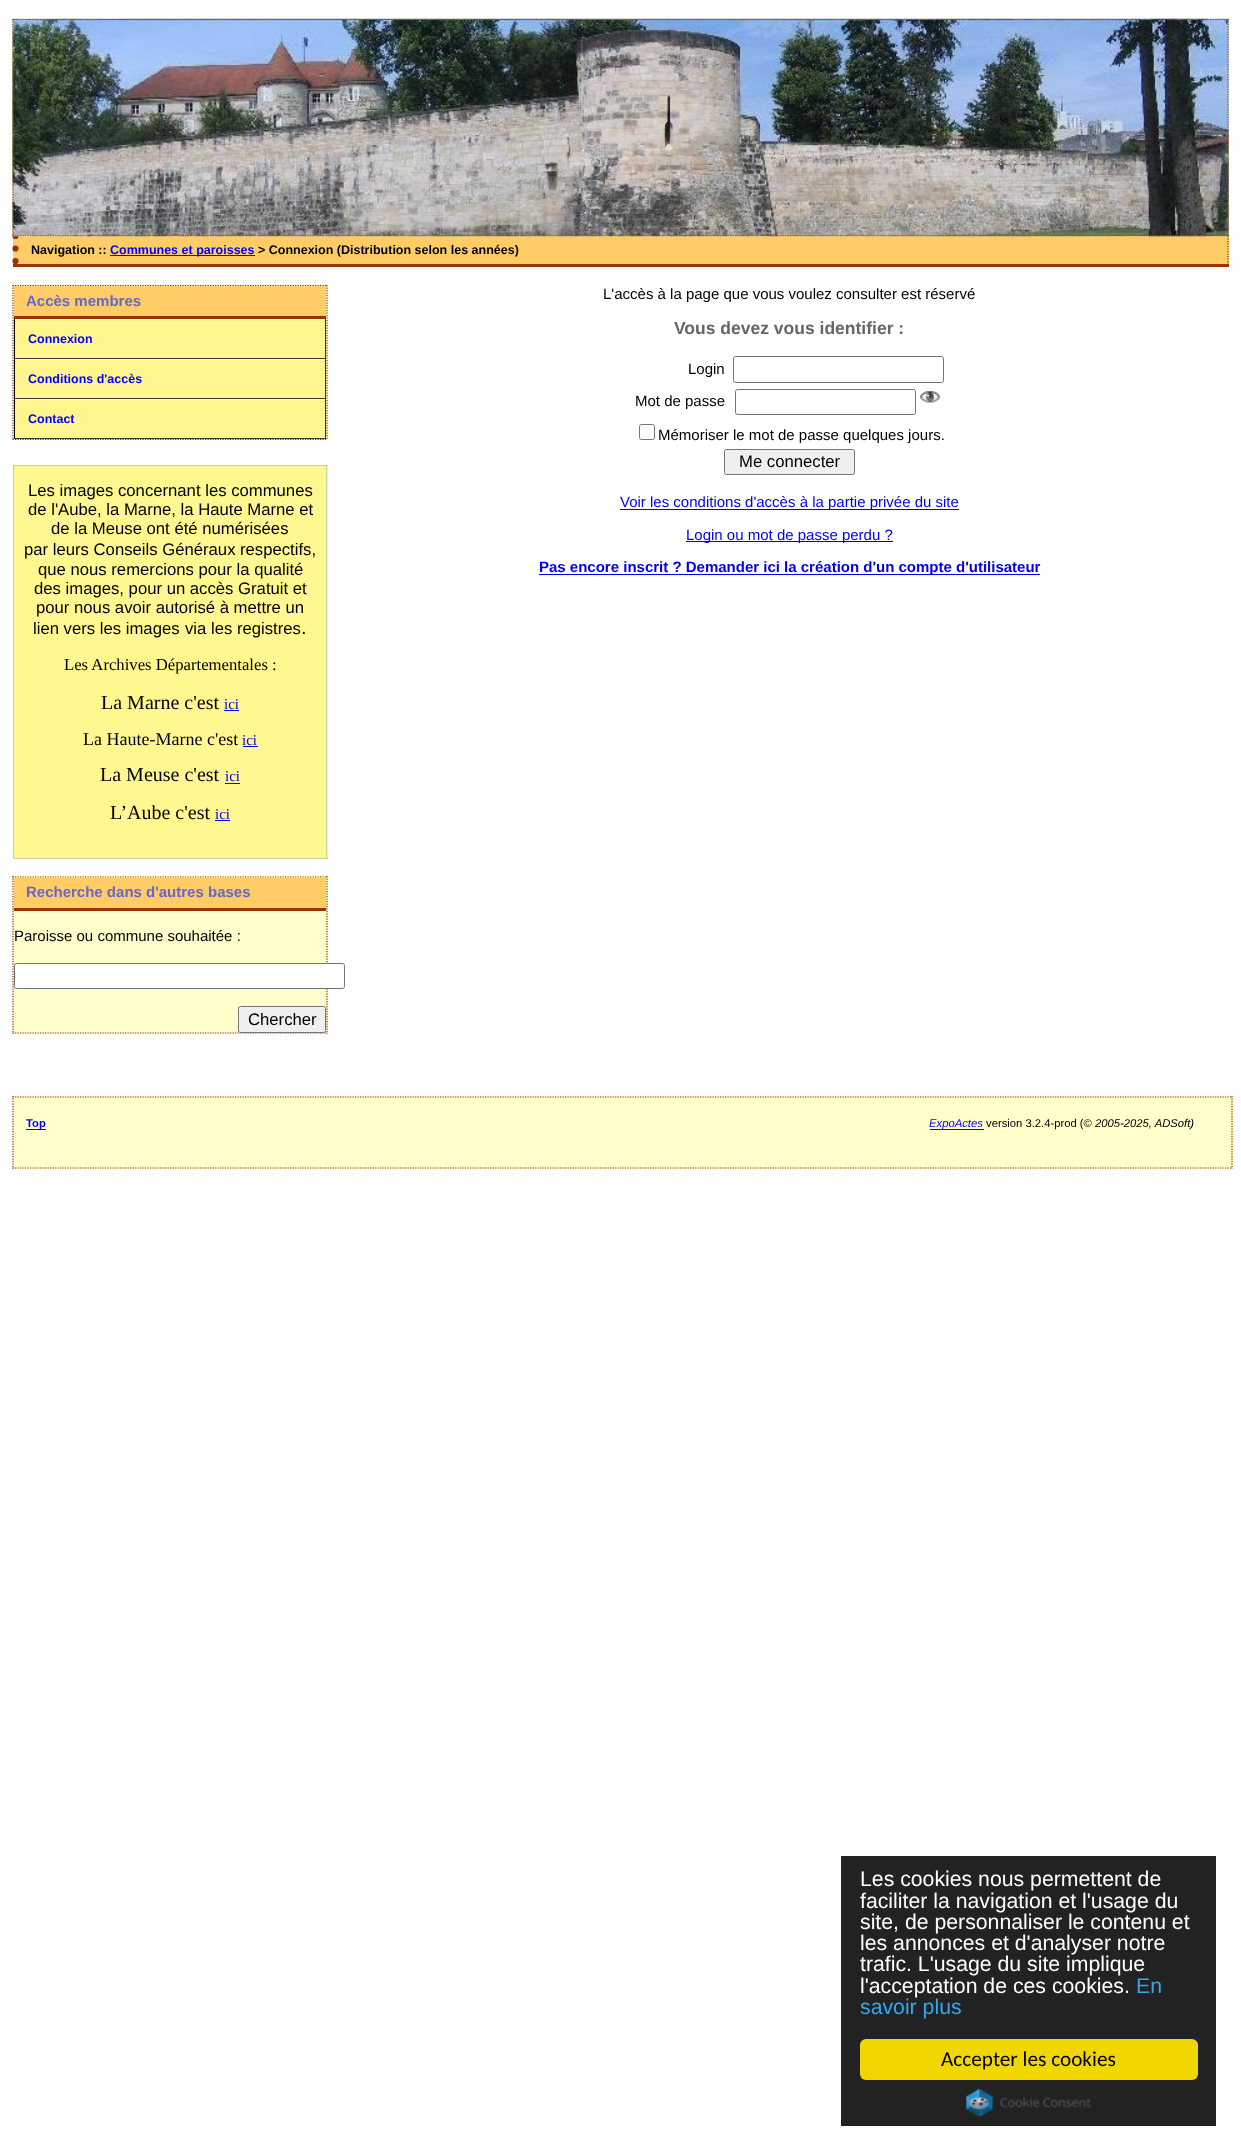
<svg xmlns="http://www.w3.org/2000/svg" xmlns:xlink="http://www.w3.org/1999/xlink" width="1241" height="2151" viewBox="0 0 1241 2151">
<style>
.cls-1{font:bold 12.5px Liberation Sans;fill:#000000}
.cls-2{font:bold 12.5px Liberation Sans;fill:#0000ff}
.cls-3{font:bold 15px Liberation Sans;fill:#6666cc}
.cls-4{font:16.7px Liberation Sans;fill:#000000}
.cls-5{font:20px Liberation Sans;fill:#000000}
.cls-6{font:16.7px Liberation Serif;fill:#000000}
.cls-7{font:20px Liberation Serif;fill:#000000}
.cls-8{font:15px Liberation Serif;fill:#0000ee}
.cls-9{font:18px Liberation Serif;fill:#000000}
.cls-10{font:15px Liberation Sans;fill:#000000}
.cls-11{font:bold 17.5px Liberation Sans;fill:#666666}
.cls-12{font:15px Liberation Sans;fill:#0000ee}
.cls-13{font:bold 15px Liberation Sans;fill:#0000ee}
.cls-14{font:bold 11.25px Liberation Sans;fill:#0000ff}
.cls-15{font:italic 11.25px Liberation Sans;fill:#0000ff}
.cls-16{font:11.25px Liberation Sans;fill:#000000}
.cls-17{font:italic 11.25px Liberation Sans;fill:#000000}
.cls-18{font:21.25px Liberation Sans;fill:#ffffff}
.cls-19{font:21.25px Liberation Sans;fill:#31a8f0}
.cls-20{font:21.25px Carlito;fill:#000000}
</style>
<rect width="100%" height="100%" fill="#ffffff"/>
<rect fill="#ffcc66" x="13" y="236" width="1216" height="28"/>
<path fill="none" stroke="#993300" stroke-width="1.2" stroke-dasharray="1.25 1.25" d="M1228 236V266"/>
<rect fill="#993300" x="13" y="264" width="1216" height="3"/>
<path fill="none" stroke="#993300" stroke-width="6.2" stroke-linecap="round" stroke-dasharray="0 12.5" d="M15.5 236V266"/>
<image xlink:href="image0.png" x="12" y="18" width="1217" height="219"/>
<path fill="none" stroke="#996500" stroke-width="1.2" stroke-dasharray="1.25 1.25" d="M12.5 19.5H1229"/>
<path fill="none" stroke="#996500" stroke-width="1.2" stroke-dasharray="1.25 1.25" d="M1228 19V236"/>
<path fill="none" stroke="#996500" stroke-width="1.2" stroke-dasharray="1.25 1.25" d="M12.5 235.5H1229"/>
<path fill="none" stroke="#996500" stroke-width="1.2" stroke-dasharray="1.25 1.25" d="M13 19V236"/>
<rect fill="#0000ff" x="110" y="255" width="145" height="1"/>
<rect fill="#ffffcc" x="13" y="285" width="315" height="155"/>
<path fill="none" stroke="#993300" stroke-width="1.2" stroke-dasharray="1.25 1.25" d="M12.5 285.5H327.5"/>
<path fill="none" stroke="#993300" stroke-width="1.2" stroke-dasharray="1.25 1.25" d="M327 285V440"/>
<path fill="none" stroke="#993300" stroke-width="1.2" stroke-dasharray="1.25 1.25" d="M12.5 439.5H327.5"/>
<path fill="none" stroke="#993300" stroke-width="1.2" stroke-dasharray="1.25 1.25" d="M13 285V440"/>
<rect fill="#ffcc66" x="14" y="286" width="312" height="30"/>
<rect fill="#993300" x="14" y="316" width="312" height="3"/>
<rect fill="#fff68f" x="15" y="320" width="310" height="38"/>
<rect fill="#ffffff" x="14" y="319" width="312" height="1"/>
<rect fill="#333333" x="325" y="319" width="1" height="40"/>
<rect fill="#333333" x="14" y="358" width="312" height="1"/>
<rect fill="#000000" x="14" y="319" width="1" height="40"/>
<rect fill="#fff68f" x="15" y="360" width="310" height="38"/>
<rect fill="#ffffff" x="14" y="359" width="312" height="1"/>
<rect fill="#333333" x="325" y="359" width="1" height="40"/>
<rect fill="#333333" x="14" y="398" width="312" height="1"/>
<rect fill="#000000" x="14" y="359" width="1" height="40"/>
<rect fill="#fff68f" x="15" y="400" width="310" height="38"/>
<rect fill="#ffffff" x="14" y="399" width="312" height="1"/>
<rect fill="#333333" x="325" y="399" width="1" height="40"/>
<rect fill="#333333" x="14" y="438" width="312" height="1"/>
<rect fill="#000000" x="14" y="399" width="1" height="40"/>
<rect fill="#fff790" x="14" y="466" width="314" height="392"/>
<rect fill="#c2d69b" x="13" y="465" width="315" height="1"/>
<rect fill="#c2d69b" x="326" y="465" width="1" height="394"/>
<rect fill="#c2d69b" x="13" y="858" width="315" height="1"/>
<rect fill="#c2d69b" x="13" y="465" width="1" height="394"/>
<rect fill="#0000ee" x="224" y="710" width="15" height="1"/>
<rect fill="#0000ee" x="243" y="746" width="15" height="1"/>
<rect fill="#0000ee" x="225" y="783" width="15" height="1"/>
<rect fill="#0000ee" x="215" y="820" width="15" height="1"/>
<rect fill="#ffffcc" x="13" y="876" width="315" height="158"/>
<path fill="none" stroke="#993300" stroke-width="1.2" stroke-dasharray="1.25 1.25" d="M12.5 877H327.5"/>
<path fill="none" stroke="#993300" stroke-width="1.2" stroke-dasharray="1.25 1.25" d="M327 876V1034"/>
<path fill="none" stroke="#993300" stroke-width="1.2" stroke-dasharray="1.25 1.25" d="M12.5 1033H327.5"/>
<path fill="none" stroke="#993300" stroke-width="1.2" stroke-dasharray="1.25 1.25" d="M13 876V1034"/>
<rect fill="#ffcc66" x="14" y="878" width="312" height="30"/>
<rect fill="#993300" x="14" y="908" width="312" height="3"/>
<rect fill="#ffffff" stroke="#767676" x="14.5" y="963.5" width="330" height="25" rx="2"/>
<rect fill="#efefef" stroke="#767676" x="238.5" y="1006.5" width="87" height="26" rx="2"/>
<rect fill="none" stroke="#767676" x="733.5" y="356.5" width="210" height="26" rx="2"/>
<rect fill="none" stroke="#767676" x="735.5" y="389.5" width="180" height="25" rx="2"/>
<image xlink:href="image1.png" x="920" y="391" width="20" height="12"/>
<rect fill="none" stroke="#767676" x="639.5" y="424.5" width="15" height="15" rx="2"/>
<rect fill="#efefef" stroke="#767676" x="724.5" y="449.5" width="130" height="25" rx="2"/>
<rect fill="#0000ee" x="620" y="509" width="339" height="1"/>
<rect fill="#0000ee" x="686" y="541" width="207" height="1"/>
<rect fill="#0000ee" x="539" y="574" width="501" height="1"/>
<rect fill="#ffffcc" x="13" y="1096" width="1220" height="73"/>
<path fill="none" stroke="#993300" stroke-width="1.2" stroke-dasharray="1.25 1.25" d="M12.5 1097H1232.5"/>
<path fill="none" stroke="#993300" stroke-width="1.2" stroke-dasharray="1.25 1.25" d="M1232 1096V1169"/>
<path fill="none" stroke="#993300" stroke-width="1.2" stroke-dasharray="1.25 1.25" d="M12.5 1168H1232.5"/>
<path fill="none" stroke="#993300" stroke-width="1.2" stroke-dasharray="1.25 1.25" d="M13 1096V1169"/>
<rect fill="#0000ff" x="26" y="1129" width="20" height="1"/>
<rect fill="#0000ff" x="930" y="1129" width="54" height="1"/>
<rect fill="#222222" x="841" y="1856" width="375" height="270"/>
<rect fill="#f1d600" x="860" y="2039" width="338" height="41" rx="6"/>
<image xlink:href="image2.png" x="966" y="2088" width="125" height="29"/>
<text class="cls-1" x="31" y="254">Navigation ::</text>
<text class="cls-2" x="110" y="254">Communes et paroisses</text>
<text class="cls-1" x="258" y="254">&gt; Connexion (Distribution selon les années)</text>
<text class="cls-3" x="26" y="306">Accès membres</text>
<text class="cls-2" x="28" y="343">Connexion</text>
<text class="cls-2" x="28" y="383">Conditions d'accès</text>
<text class="cls-2" x="28" y="423">Contact</text>
<text class="cls-4"><tspan x="28" y="496">Les images concernant les communes</tspan><tspan x="28" y="515">de l'Aube, la Marne, la Haute Marne et</tspan></text>
<text class="cls-4" x="51" y="534">de la Meuse ont été numérisées</text>
<text class="cls-4" x="24" y="555">par leurs Conseils Généraux</text>
<text class="cls-4" x="240" y="555">respectifs,</text>
<text class="cls-4" x="38" y="575">que nous remercions pour la qualité</text>
<text class="cls-4" x="34" y="594">des images, pour un accès Gratuit et</text>
<text class="cls-4" x="36" y="613">pour nous avoir autorisé à mettre un</text>
<text class="cls-4" x="33" y="634">lien vers les images</text>
<text class="cls-4" x="185" y="634">via les registres</text>
<text class="cls-5" x="301" y="634">.</text>
<text class="cls-6" x="64" y="670">Les Archives Départementales :</text>
<text class="cls-7" x="101" y="709">La Marne c'est</text>
<text class="cls-8" x="224" y="709">ici</text>
<text class="cls-9" x="83" y="745">La Haute-Marne c'est</text>
<text class="cls-8" x="242" y="745">ici</text>
<text class="cls-7" x="100" y="781">La Meuse c'est</text>
<text class="cls-8" x="225" y="781">ici</text>
<text class="cls-7" x="110" y="819">L’Aube c'est</text>
<text class="cls-8" x="215" y="819">ici</text>
<text class="cls-3" x="26" y="897">Recherche dans d'autres bases</text>
<text class="cls-10" x="14" y="941">Paroisse ou commune souhaitée :</text>
<text class="cls-4" x="248" y="1025">Chercher</text>
<text class="cls-10" x="603" y="299">L'accès à la page que vous voulez consulter est réservé</text>
<text class="cls-11" x="674" y="334">Vous devez vous identifier :</text>
<text class="cls-10" x="688" y="374">Login</text>
<text class="cls-10" x="635" y="406">Mot de passe</text>
<text class="cls-10" x="658" y="440">Mémoriser le mot de passe quelques jours.</text>
<text class="cls-4" x="739" y="467">Me connecter</text>
<text class="cls-12" x="620" y="507">Voir les conditions d'accès à la partie privée du site</text>
<text class="cls-12" x="686" y="540">Login ou mot de passe perdu ?</text>
<text class="cls-13" x="539" y="572">Pas encore inscrit ? Demander ici la création d'un compte d'utilisateur</text>
<text class="cls-14" x="26" y="1127">Top</text>
<text class="cls-15" x="929" y="1127">ExpoActes</text>
<text class="cls-16" x="986" y="1127">version 3.2.4-prod (©</text>
<text class="cls-17" x="1095" y="1127">2005-2025, ADSoft)</text>
<text class="cls-18"><tspan x="860" y="1886">Les cookies nous permettent de</tspan><tspan x="860" y="1908">faciliter la navigation et l'usage du</tspan><tspan x="860" y="1929">site, de personnaliser le contenu et</tspan><tspan x="860" y="1950">les annonces et d'analyser notre</tspan><tspan x="860" y="1971">trafic. L'usage du site implique</tspan><tspan x="860" y="1993">l'acceptation de ces cookies.</tspan></text>
<text class="cls-19" x="1136" y="1993">En</text>
<text class="cls-19" x="860" y="2014">savoir plus</text>
<text class="cls-20" x="941" y="2066">Accepter les cookies</text>
</svg>
